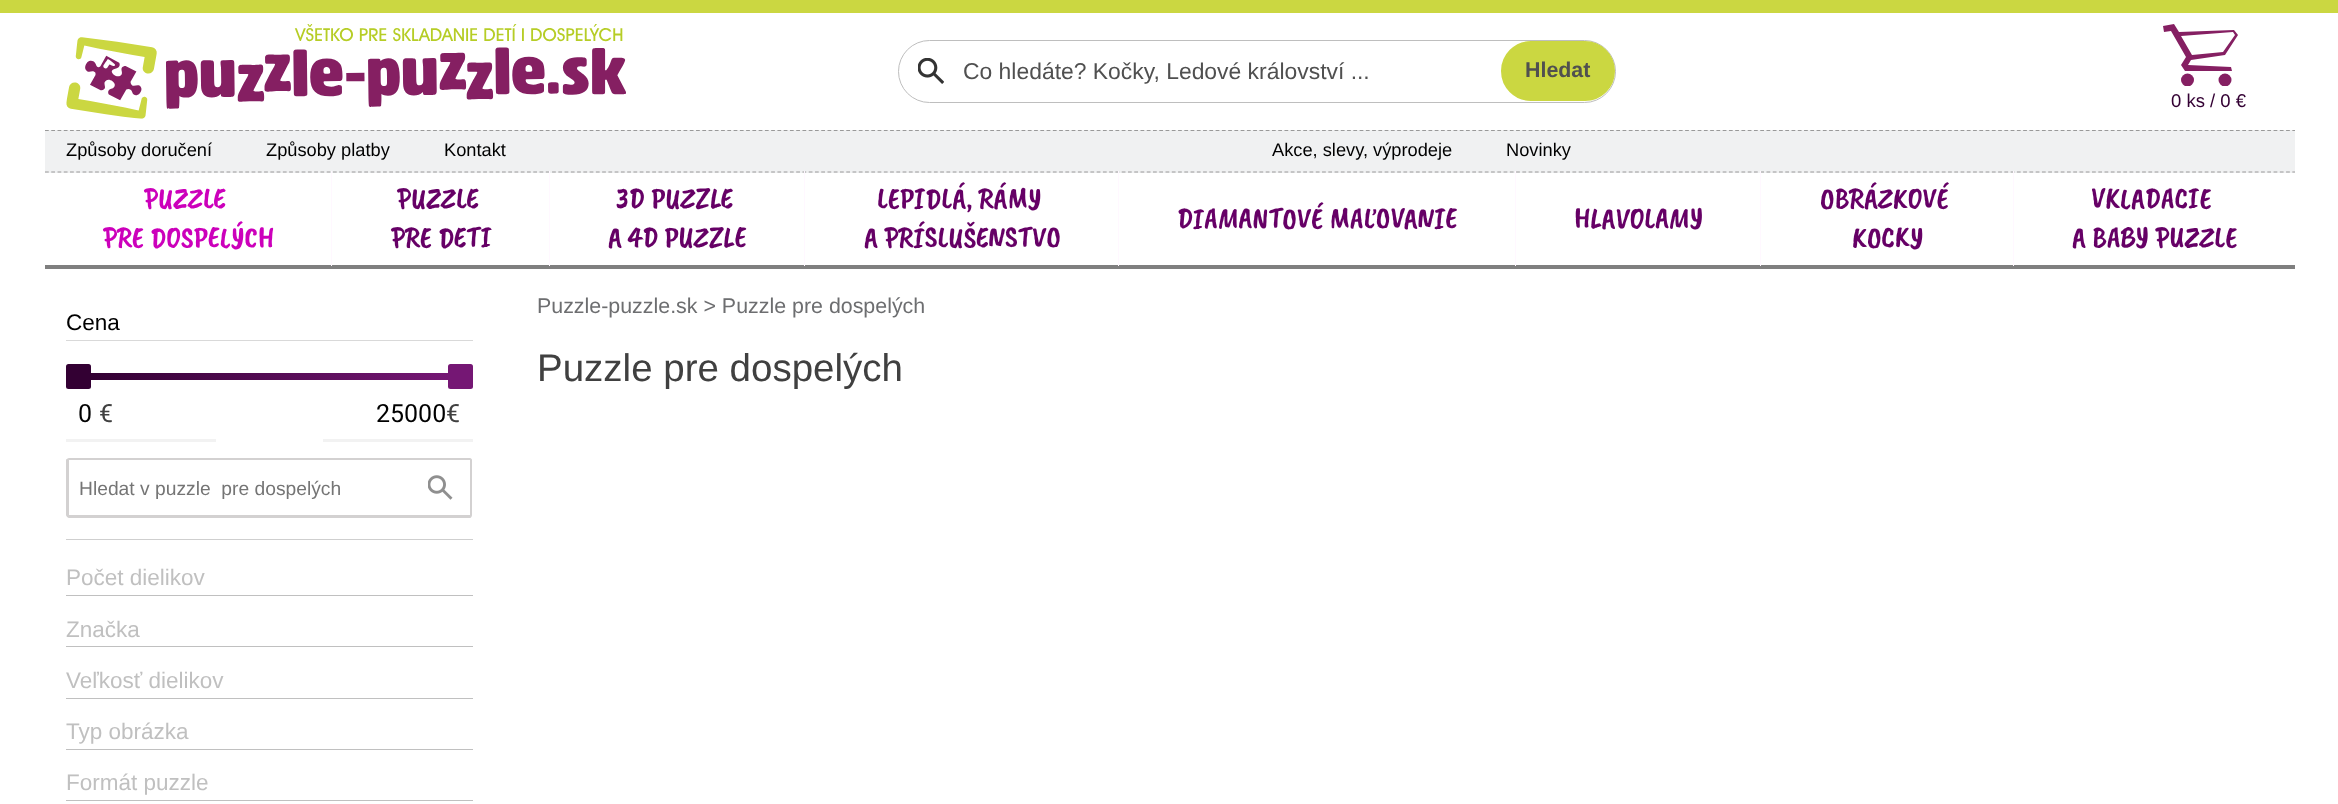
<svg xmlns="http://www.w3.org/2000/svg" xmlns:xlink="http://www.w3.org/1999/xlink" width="2338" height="804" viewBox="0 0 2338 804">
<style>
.cls-1{font:22.9px Liberation Sans;fill:#505050}
.cls-2{font:bold 21.4px Liberation Sans;fill:#505050}
.cls-3{font:18.5px Liberation Sans;fill:#330033}
.cls-4{font:18.25px Liberation Sans;fill:#000000}
.cls-5{font:30px Caveat Brush;fill:#cc00bb}
.cls-6{font:30px Caveat Brush;fill:#660066}
.cls-7{font:22.5px Liberation Sans;fill:#000000}
.cls-8{font:25px Roboto;fill:#000000}
.cls-9{font:25px Roboto;fill:#404040}
.cls-10{font:19.25px Liberation Sans;fill:#757575}
.cls-11{font:22.5px Liberation Sans;fill:#c0c0c0}
.cls-12{font:21.4px Liberation Sans;fill:#6d6e70}
.cls-13{font:38.5px Liberation Sans;fill:#404040}
</style>
<defs>
<clipPath id="clip1"><rect x="2163" y="24" width="76" height="62"/></clipPath>
<linearGradient id="g1" gradientUnits="userSpaceOnUse" x1="79" y1="376" x2="460" y2="376"><stop offset="0.03" stop-color="#330033"/><stop offset="0.97" stop-color="#751774"/></linearGradient>
</defs>
<rect width="100%" height="100%" fill="#ffffff"/>
<rect fill="#cbd741" x="0" y="0" width="2338" height="13"/>
<image xlink:href="image0.png" x="66" y="24" width="560" height="95"/>
<rect fill="none" stroke="#bebebe" x="898.5" y="40.5" width="717" height="62" rx="31"/>
<image xlink:href="image1.png" x="918" y="58" width="26" height="26"/>
<rect fill="#cbd741" stroke="#cbd741" stroke-width="3" x="1502.5" y="42.5" width="111" height="57" rx="28.5"/>
<path fill="#851f62" d="M2174 24L2179 32L2234 30L2238 35L2225 55L2191 60L2188 65L2231 67L2232 71H2185L2181 65L2186 57L2171 31L2164 32L2163 26ZM2181 36L2192 55L2223 52L2235 35L2233 32Z"/>
<g clip-path="url(#clip1)">
<circle fill="#851f62" cx="2187.5" cy="80" r="6.5"/>
<circle fill="#851f62" cx="2225" cy="80" r="6.5"/>
</g>
<rect fill="#f0f1f2" x="45" y="130" width="2250" height="43"/>
<path fill="none" stroke="#999999" stroke-width="1.2" stroke-dasharray="3.75 2.51" d="M45 130.5H2295"/>
<path fill="none" stroke="#999999" stroke-width="1.2" stroke-dasharray="3.75 2.51" d="M45 172H2295"/>
<rect fill="#7f7f7f" x="45" y="265" width="2250" height="4"/>
<rect fill="#fff8ff" x="331" y="171" width="1" height="95"/>
<rect fill="#fff8ff" x="549" y="171" width="1" height="95"/>
<rect fill="#fff8ff" x="804" y="171" width="1" height="95"/>
<rect fill="#fff8ff" x="1118" y="171" width="1" height="95"/>
<rect fill="#fff8ff" x="1515" y="171" width="1" height="95"/>
<rect fill="#fff8ff" x="1760" y="171" width="1" height="95"/>
<rect fill="#fff8ff" x="2013" y="171" width="1" height="95"/>
<rect fill="#d9d9d9" x="66" y="340" width="407" height="1"/>
<rect fill="#330033" x="66" y="364" width="25" height="25" rx="2.5"/>
<rect fill="url(#g1)" x="91" y="373" width="357" height="7"/>
<rect fill="#751774" x="448" y="364" width="25" height="25" rx="2.5"/>
<rect fill="#f2f2f2" x="66" y="439" width="150" height="3"/>
<rect fill="#f2f2f2" x="323" y="439" width="150" height="3"/>
<path fill="#d3d1d1" fill-rule="evenodd" d="M69 458H409V518H69C68 518 66 516 66 515V460C66 459 68 458 69 458ZM69 460H409V515H69Z"/>
<path fill="#d3d1d1" fill-rule="evenodd" d="M409 458H470C471 458 472 459 472 460V515C472 516 471 518 470 518H409ZM409 460H470V515H409Z"/>
<image xlink:href="image2.png" x="428" y="475" width="25" height="25"/>
<rect fill="#cfcfcf" x="66" y="539" width="407" height="1"/>
<rect fill="#c0c0c0" x="66" y="595" width="407" height="1"/>
<rect fill="#c0c0c0" x="66" y="646" width="407" height="1"/>
<rect fill="#c0c0c0" x="66" y="698" width="407" height="1"/>
<rect fill="#c0c0c0" x="66" y="749" width="407" height="1"/>
<rect fill="#c0c0c0" x="66" y="800" width="407" height="1"/>
<text class="cls-1" x="963" y="79">Co hledáte? Kočky, Ledové království ...</text>
<text class="cls-2" x="1525" y="77">Hledat</text>
<text class="cls-3" x="2171" y="107">0 ks / 0 €</text>
<text class="cls-4" x="66" y="156">Způsoby doručení</text>
<text class="cls-4" x="266" y="156">Způsoby platby</text>
<text class="cls-4" x="444" y="156">Kontakt</text>
<text class="cls-4" x="1272" y="156">Akce, slevy, výprodeje</text>
<text class="cls-4" x="1506" y="156">Novinky</text>
<text class="cls-5" x="144" y="208">PUZZLE</text>
<text class="cls-5" x="103" y="247">PRE DOSPELÝCH</text>
<text class="cls-6" x="397" y="208">PUZZLE</text>
<text class="cls-6" x="391" y="247">PRE DETI</text>
<text class="cls-6" x="616" y="208">3D PUZZLE</text>
<text class="cls-6" x="608" y="247">A 4D PUZZLE</text>
<text class="cls-6" x="877" y="208">LEPIDLÁ, RÁMY</text>
<text class="cls-6" x="864" y="247">A PRÍSLUŠENSTVO</text>
<text class="cls-6" x="1177" y="228">DIAMANTOVÉ MAĽOVANIE</text>
<text class="cls-6" x="1574" y="228">HLAVOLAMY</text>
<text class="cls-6" x="1820" y="208">OBRÁZKOVÉ</text>
<text class="cls-6" x="1852" y="247">KOCKY</text>
<text class="cls-6" x="2091" y="208">VKLADACIE</text>
<text class="cls-6" x="2072" y="247">A BABY PUZZLE</text>
<text class="cls-7" x="66" y="330">Cena</text>
<text class="cls-8" x="78" y="422">0</text>
<text class="cls-9" x="99" y="422">€</text>
<text class="cls-8" x="376" y="422">25000</text>
<text class="cls-9" x="446" y="422">€</text>
<text class="cls-10" xml:space="preserve" x="79" y="495">Hledat v puzzle  pre dospelých</text>
<text class="cls-11" x="66" y="585">Počet dielikov</text>
<text class="cls-11" x="66" y="637">Značka</text>
<text class="cls-11" x="66" y="688">Veľkosť dielikov</text>
<text class="cls-11" x="66" y="739">Typ obrázka</text>
<text class="cls-11" x="66" y="790">Formát puzzle</text>
<text class="cls-12" x="537" y="313">Puzzle-puzzle.sk &gt; Puzzle pre dospelých</text>
<text class="cls-13" x="537" y="381">Puzzle pre dospelých</text>
</svg>
